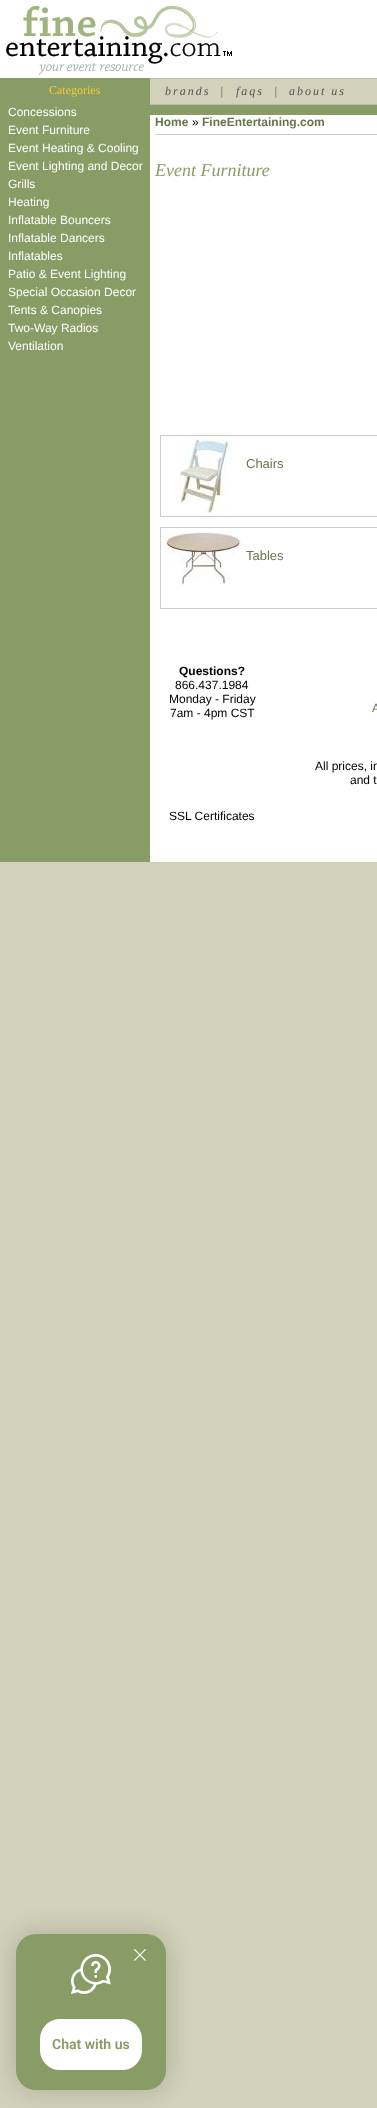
<svg xmlns="http://www.w3.org/2000/svg" xmlns:xlink="http://www.w3.org/1999/xlink" width="377" height="2108" viewBox="0 0 377 2108">
<style>
.cls-1{font:12px Liberation Serif;fill:#f7c936}
.cls-2{font:12px Liberation Sans;fill:#ffffff}
.cls-3{font:italic 12px Liberation Serif;letter-spacing:2px;fill:#604e59}
.cls-4{font:bold 12px Liberation Sans;fill:#66754c}
.cls-5{font:12px Liberation Sans;fill:#000000}
.cls-6{font:italic 18px Liberation Serif;fill:#889c65}
.cls-7{font:13px Liberation Sans;fill:#66754c}
.cls-8{font:bold 12px Liberation Sans;fill:#000000}
.cls-9{font:12px Liberation Sans;fill:#66754c}
.cls-10{font:600 14px Roboto;fill:#889c65}
</style>
<rect width="100%" height="100%" fill="#d2d2bb"/>
<rect fill="#ffffff" x="0" y="0" width="377" height="78"/>
<image xlink:href="image0.png" x="6" y="6" width="226" height="69"/>
<rect fill="#889c65" x="0" y="78" width="377" height="784"/>
<rect fill="#d2d2bb" x="150" y="79" width="227" height="25"/>
<rect fill="#bbbbbb" x="150" y="78" width="227" height="1"/>
<rect fill="#bbbbbb" x="150" y="104" width="227" height="1"/>
<rect fill="#ffffff" x="150" y="115" width="227" height="747"/>
<rect fill="#cccccc" x="155" y="134" width="222" height="1"/>
<rect fill="none" stroke="#cccccc" x="160.5" y="435.5" width="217" height="81"/>
<image xlink:href="image1.png" x="179" y="439" width="50" height="75"/>
<rect fill="none" stroke="#cccccc" x="160.5" y="527.5" width="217" height="81"/>
<image xlink:href="image2.png" x="166" y="531" width="75" height="54"/>
<rect fill="#000000" fill-opacity="0.19" filter="blur(13.5px)" x="16" y="1934" width="150" height="156" rx="20"/>
<rect fill="#889c65" x="16" y="1934" width="150" height="156" rx="20"/>
<image xlink:href="image3.png" x="71" y="1954" width="40" height="40"/>
<image xlink:href="image4.png" x="134" y="1949" width="12" height="12"/>
<rect fill="#ffffff" stroke="#ffffff" stroke-width="2" x="41" y="2020" width="100" height="49" rx="19"/>
<text class="cls-1" x="49" y="94">Categories</text>
<text class="cls-2"><tspan x="8" y="116">Concessions</tspan><tspan x="8" y="134">Event Furniture</tspan><tspan x="8" y="152">Event Heating &amp; Cooling</tspan><tspan x="8" y="170">Event Lighting and Decor</tspan><tspan x="8" y="188">Grills</tspan><tspan x="8" y="206">Heating</tspan><tspan x="8" y="224">Inflatable Bouncers</tspan><tspan x="8" y="242">Inflatable Dancers</tspan><tspan x="8" y="260">Inflatables</tspan><tspan x="8" y="278">Patio &amp; Event Lighting</tspan><tspan x="8" y="296">Special Occasion Decor</tspan><tspan x="8" y="314">Tents &amp; Canopies</tspan><tspan x="8" y="332">Two-Way Radios</tspan><tspan x="8" y="350">Ventilation</tspan></text>
<text class="cls-3" x="165" y="95">brands</text>
<text class="cls-3" x="220" y="95">|</text>
<text class="cls-3" x="236" y="95">faqs</text>
<text class="cls-3" x="274" y="95">|</text>
<text class="cls-3" x="289" y="95">about us</text>
<text class="cls-4" x="155" y="126">Home</text>
<text class="cls-5" x="192" y="126">»</text>
<text class="cls-4" x="202" y="126">FineEntertaining.com</text>
<text class="cls-6" x="155" y="176">Event Furniture</text>
<text class="cls-7" x="246" y="468">Chairs</text>
<text class="cls-7" x="246" y="560">Tables</text>
<text class="cls-8" x="179" y="675">Questions?</text>
<text class="cls-5" x="175" y="689">866.437.1984</text>
<text class="cls-5" x="169" y="703">Monday - Friday</text>
<text class="cls-5" x="170" y="717">7am - 4pm CST</text>
<text class="cls-9" x="372" y="712">A</text>
<text class="cls-5" x="315" y="770">All prices, in</text>
<text class="cls-5" x="350" y="784">and t</text>
<text class="cls-5" x="169" y="820">SSL Certificates</text>
<text class="cls-10" x="52" y="2049">Chat with us</text>
</svg>
